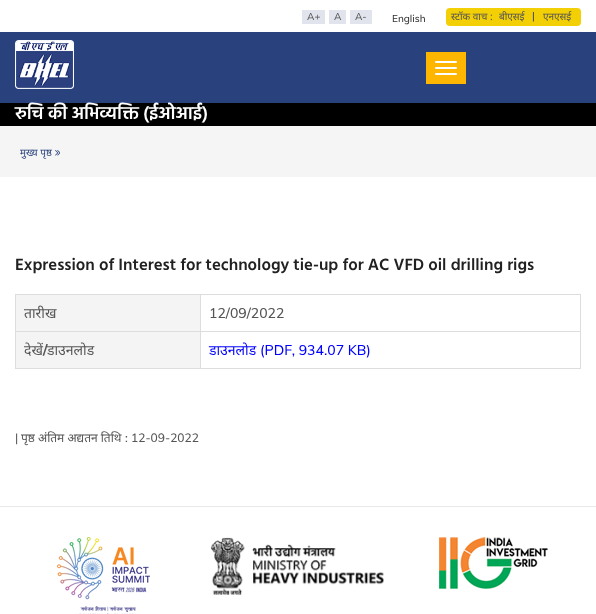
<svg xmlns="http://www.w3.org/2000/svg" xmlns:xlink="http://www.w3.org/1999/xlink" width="596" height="614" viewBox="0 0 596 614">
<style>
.cls-1{font:500 10px Muli;fill:#555555}
.cls-2{font:500 10px Muli;fill:#333333}
.cls-3{font:10px Noto Sans;fill:#555555}
.cls-4{font:600 10px Museo Sans;fill:#555555}
.cls-5{font:600 18px Hind;fill:#ffffff}
.cls-6{font:10px Noto Sans;fill:#29417c}
.cls-7{font:600 16.8px Hind;fill:#212121}
.cls-8{font:14px Noto Sans;fill:#555555}
.cls-9{font:500 14px Muli;fill:#555555}
.cls-10{font:bold 14px Muli;fill:#555555}
.cls-11{font:14px Noto Sans;fill:#0000ff}
.cls-12{font:500 14px Muli;fill:#0000ff}
.cls-13{font:500 12px Muli;fill:#555555}
.cls-14{font:12px Noto Sans;fill:#555555}
</style>
<defs>
<clipPath id="clip1"><rect x="20" y="146" width="40" height="14"/></clipPath>
</defs>
<rect width="100%" height="100%" fill="#ffffff"/>
<rect fill="#000000" x="0" y="103" width="596" height="23"/>
<rect fill="#000000" fill-opacity="0.06" filter="blur(4.5px)" x="0" y="38" width="596" height="71"/>
<rect fill="#e1e4ed" x="302" y="10" width="23" height="14"/>
<rect fill="#e1e4ed" x="329" y="10" width="17" height="14"/>
<rect fill="#e1e4ed" x="350" y="10" width="22" height="14"/>
<rect fill="#f3cf05" x="446" y="8" width="135" height="18" rx="4"/>
<rect fill="#29417c" x="0" y="32" width="596" height="71"/>
<image xlink:href="image0.png" x="15" y="40" width="59" height="49"/>
<rect fill="#ffb600" x="426" y="52" width="40" height="32"/>
<rect fill="#ffffff" x="435" y="61" width="22" height="2" rx="1"/>
<rect fill="#ffffff" x="435" y="67" width="22" height="2" rx="1"/>
<rect fill="#ffffff" x="435" y="73" width="22" height="2" rx="1"/>
<rect fill="#f5f5f5" x="0" y="126" width="596" height="51"/>
<image xlink:href="image1.png" x="55" y="150" width="5" height="6"/>
<rect fill="#dddddd" x="15" y="294" width="566" height="1"/>
<rect fill="#dddddd" x="580" y="294" width="1" height="75"/>
<rect fill="#dddddd" x="15" y="368" width="566" height="1"/>
<rect fill="#dddddd" x="15" y="294" width="1" height="75"/>
<rect fill="#f4f4f4" x="16" y="295" width="184" height="36"/>
<rect fill="#dddddd" x="200" y="331" width="381" height="1"/>
<rect fill="#dddddd" x="200" y="331" width="1" height="38"/>
<rect fill="#dddddd" x="15" y="331" width="186" height="1"/>
<rect fill="#dddddd" x="200" y="294" width="1" height="38"/>
<rect fill="#f4f4f4" x="16" y="332" width="184" height="36"/>
<rect fill="#e9e9e9" x="0" y="506" width="596" height="1"/>
<image xlink:href="image2.png" x="57" y="537" width="93" height="77"/>
<image xlink:href="image3.png" x="210" y="537" width="174" height="58"/>
<image xlink:href="image4.png" x="439" y="537" width="109" height="52"/>
<text class="cls-1" x="307" y="20">A+</text>
<text class="cls-1" x="334" y="20">A</text>
<text class="cls-1" x="355" y="20">A-</text>
<text class="cls-2" x="392" y="22">English</text>
<text class="cls-3" x="451" y="20">स्टॉक वाच :</text>
<text class="cls-3" x="499" y="20">बीएसई</text>
<text class="cls-4" x="532" y="20">|</text>
<text class="cls-3" x="543" y="20">एनएसई</text>
<text class="cls-5" x="15" y="119">रुचि की अभिव्यक्ति (ईओआई)</text>
<g clip-path="url(#clip1)">
<text class="cls-6" x="20" y="156">मुख्य पृष्ठ</text>
</g>
<text class="cls-7" x="15" y="270">Expression of Interest for technology tie-up for AC VFD oil drilling rigs</text>
<text class="cls-8" x="24" y="318">तारीख</text>
<text class="cls-9" x="209" y="318">12/09/2022</text>
<text class="cls-8" x="24" y="355">देखें</text>
<text class="cls-10" x="43" y="355">/</text>
<text class="cls-8" x="47" y="355">डाउनलोड</text>
<text class="cls-11" x="209" y="355">डाउनलोड</text>
<text class="cls-12" x="260" y="355">(PDF, 934.07 KB)</text>
<text class="cls-13" x="15" y="442">|</text>
<text class="cls-14" x="21" y="442">पृष्ठ अंतिम अद्यतन तिथि</text>
<text class="cls-13" x="125" y="442">: 12-09-2022</text>
</svg>
